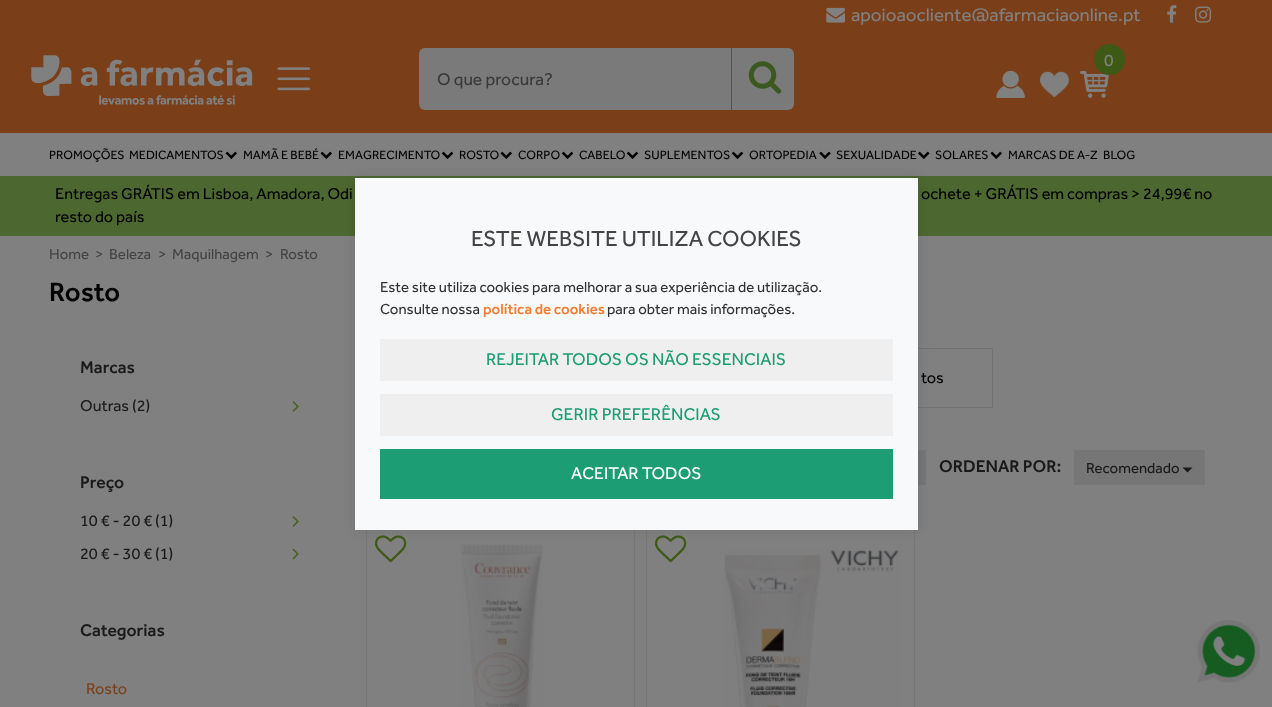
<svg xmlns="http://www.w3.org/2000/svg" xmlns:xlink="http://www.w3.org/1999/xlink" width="1272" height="707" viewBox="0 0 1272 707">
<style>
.cls-1{font:18.75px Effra;fill:#808080}
.cls-2{font:17.5px Effra;fill:#808080}
.cls-3{font:17.5px Effra;fill:#393939}
.cls-4{font:12.5px Effra;fill:#000000}
.cls-5{font:16.25px Effra;fill:#000000}
.cls-6{font:22.5px Effra;fill:#444444}
.cls-7{font:15px Effra;fill:#333333}
.cls-8{font:500 15px Effra;fill:#f47d31}
.cls-9{font:17.5px Effra;fill:#1d9d74}
.cls-10{font:17.5px Effra;fill:#ffffff}
.cls-11{font:15px Effra;fill:#444444}
.cls-12{font:500 27.5px Effra;fill:#000000}
.cls-13{font:500 17.5px Effra;fill:#1a1a1a}
.cls-14{font:16.25px Effra;fill:#1a1a1a}
.cls-15{font:16.25px Effra;fill:#7a3f19}
.cls-16{font:15px Effra;fill:#1a1a1a}
</style>
<rect width="100%" height="100%" fill="#808080"/>
<rect fill="#7a3f19" x="0" y="0" width="1272" height="133"/>
<image xlink:href="image0.png" x="826" y="7" width="19" height="16"/>
<image xlink:href="image1.png" x="1167" y="5" width="10" height="18"/>
<image xlink:href="image2.png" x="1195" y="6" width="17" height="17"/>
<image xlink:href="image3.png" x="31" y="55" width="222" height="50"/>
<image xlink:href="image4.png" x="277" y="67" width="33" height="24"/>
<image xlink:href="image5.png" x="1080" y="70" width="29" height="28"/>
<circle fill="#3e5916" cx="1109.5" cy="59.5" r="15.5"/>
<image xlink:href="image6.png" x="996" y="70" width="29" height="28"/>
<image xlink:href="image7.png" x="1040" y="71" width="29" height="27"/>
<rect fill="#7a7a7a" x="419" y="48" width="375" height="62" rx="6"/>
<rect fill="#535353" x="731" y="48" width="1" height="62"/>
<image xlink:href="image8.png" x="748" y="61" width="34" height="33"/>
<image xlink:href="image9.png" x="225" y="151" width="12" height="8"/>
<image xlink:href="image9.png" x="320" y="151" width="12" height="8"/>
<image xlink:href="image10.png" x="441" y="151" width="13" height="8"/>
<image xlink:href="image9.png" x="500" y="151" width="12" height="8"/>
<image xlink:href="image10.png" x="561" y="151" width="13" height="8"/>
<image xlink:href="image10.png" x="626" y="151" width="13" height="8"/>
<image xlink:href="image10.png" x="731" y="151" width="13" height="8"/>
<image xlink:href="image11.png" x="819" y="151" width="12" height="8"/>
<image xlink:href="image12.png" x="918" y="151" width="12" height="8"/>
<image xlink:href="image9.png" x="990" y="151" width="12" height="8"/>
<rect fill="#4d6730" x="0" y="176" width="1272" height="60"/>
<rect fill="none" stroke="#727272" x="785.5" y="348.5" width="207" height="59"/>
<rect fill="#767676" x="918" y="450" width="8" height="35"/>
<rect fill="none" stroke="#777777" x="366.5" y="526.5" width="268" height="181"/>
<image xlink:href="image15.png" x="375" y="535" width="32" height="28"/>
<image xlink:href="image16.png" x="461" y="544" width="82" height="163"/>
<rect fill="none" stroke="#777777" x="646.5" y="526.5" width="268" height="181"/>
<image xlink:href="image15.png" x="655" y="535" width="32" height="28"/>
<rect fill="#000000" fill-opacity="0.1" filter="blur(6px)" x="355" y="178" width="563" height="352"/>
<rect fill="#f8f9fa" x="355" y="178" width="563" height="352"/>
<rect fill="#efefef" x="380" y="339" width="513" height="42"/>
<rect fill="#efefef" x="380" y="394" width="513" height="42"/>
<rect fill="#1d9d74" x="380" y="449" width="513" height="50"/>
<image xlink:href="image13.png" x="292" y="401" width="7" height="11"/>
<image xlink:href="image13.png" x="292" y="516" width="7" height="11"/>
<image xlink:href="image14.png" x="292" y="548" width="7" height="12"/>
<rect fill="#767676" x="1074" y="450" width="131" height="35"/>
<path fill="#1a1a1a" d="M1182.5 467.5H1192.5L1187.5 472.5Z"/>
<image xlink:href="image17.png" x="724" y="550" width="175" height="157"/>
<image xlink:href="image18.png" x="1197" y="620" width="63" height="63"/>
<text class="cls-1" x="851" y="21">apoioaocliente@afarmaciaonline.pt</text>
<text class="cls-2" x="1104" y="66">0</text>
<text class="cls-3" x="437" y="85">O que procura?</text>
<text class="cls-4" x="49" y="159">PROMOÇÕES</text>
<text class="cls-4" x="129" y="159">MEDICAMENTOS</text>
<text class="cls-4" x="243" y="159">MAMÃ E BEBÉ</text>
<text class="cls-4" x="338" y="159">EMAGRECIMENTO</text>
<text class="cls-4" x="459" y="159">ROSTO</text>
<text class="cls-4" x="518" y="159">CORPO</text>
<text class="cls-4" x="579" y="159">CABELO</text>
<text class="cls-4" x="644" y="159">SUPLEMENTOS</text>
<text class="cls-4" x="749" y="159">ORTOPEDIA</text>
<text class="cls-4" x="836" y="159">SEXUALIDADE</text>
<text class="cls-4" x="935" y="159">SOLARES</text>
<text class="cls-4" x="1008" y="159">MARCAS DE A-Z</text>
<text class="cls-4" x="1103" y="159">BLOG</text>
<text class="cls-5" x="55" y="199">Entregas GRÁTIS em Lisboa, Amadora, Odi</text>
<text class="cls-5" x="921" y="199">ochete + GRÁTIS em compras &gt; 24,99€ no</text>
<text class="cls-5" x="55" y="222">resto do país</text>
<text class="cls-6" x="471" y="246">ESTE WEBSITE UTILIZA COOKIES</text>
<text class="cls-7"><tspan x="380" y="292">Este site utiliza cookies para melhorar a sua experiência de utilização.</tspan><tspan x="380" y="314">Consulte nossa</tspan></text>
<text class="cls-8" x="483" y="314">política de cookies</text>
<text class="cls-7" x="607" y="314">para obter mais informações.</text>
<text class="cls-9" x="486" y="365">REJEITAR TODOS OS NÃO ESSENCIAIS</text>
<text class="cls-9" x="551" y="420">GERIR PREFERÊNCIAS</text>
<text class="cls-10" x="571" y="479">ACEITAR TODOS</text>
<text class="cls-11" x="49" y="259">Home</text>
<text class="cls-11" x="95" y="259">&gt;</text>
<text class="cls-11" x="109" y="259">Beleza</text>
<text class="cls-11" x="158" y="259">&gt;</text>
<text class="cls-11" x="172" y="259">Maquilhagem</text>
<text class="cls-11" x="265" y="259">&gt;</text>
<text class="cls-11" x="280" y="259">Rosto</text>
<text class="cls-12" x="49" y="301">Rosto</text>
<text class="cls-13" x="80" y="373">Marcas</text>
<text class="cls-14" x="80" y="411">Outras (2)</text>
<text class="cls-13" x="80" y="488">Preço</text>
<text class="cls-14" x="80" y="526">10 € - 20 € (1)</text>
<text class="cls-14" x="80" y="559">20 € - 30 € (1)</text>
<text class="cls-13" x="80" y="636">Categorias</text>
<text class="cls-15" x="86" y="694">Rosto</text>
<text class="cls-5" x="921" y="383">tos</text>
<text class="cls-13" x="939" y="472">ORDENAR POR:</text>
<text class="cls-16" x="1086" y="473">Recomendado</text>
</svg>
